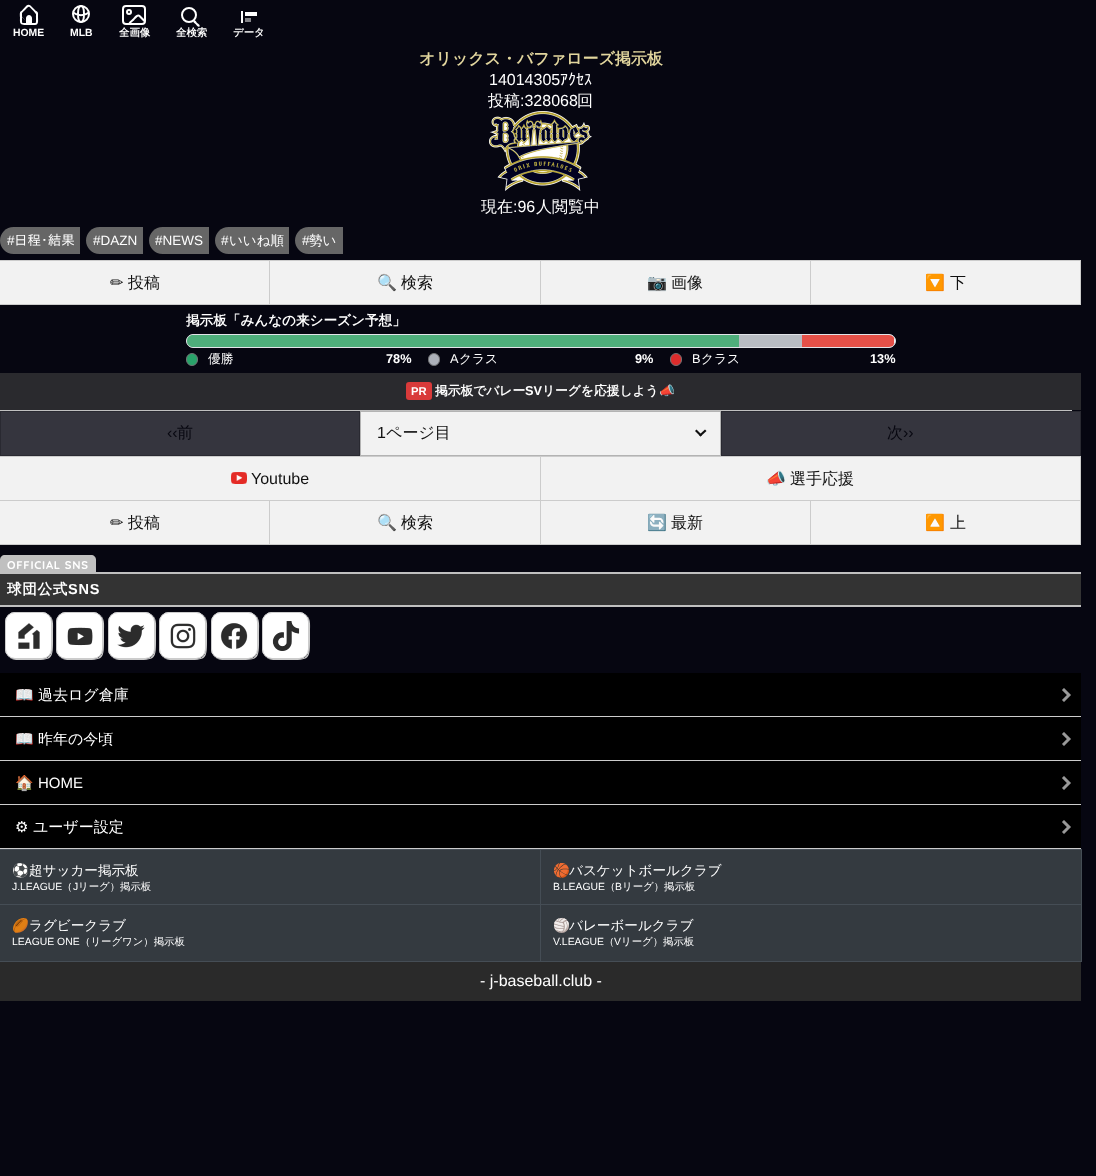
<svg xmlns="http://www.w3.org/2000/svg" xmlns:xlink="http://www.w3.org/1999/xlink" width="1096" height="1176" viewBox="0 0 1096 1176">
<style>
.cls-1{font:bold 10.4px Liberation Sans;fill:#ffffff}
.cls-2{font:bold 10.4px WenQuanYi Zen Hei;fill:#ffffff}
.cls-3{font:bold 16px WenQuanYi Zen Hei;fill:#e2d69e}
.cls-4{font:16px Liberation Sans;fill:#ffffff}
.cls-5{font:16px IPAPGothic;fill:#ffffff}
.cls-6{font:500 16px WenQuanYi Zen Hei;fill:#ffffff}
.cls-7{font:13.5px Liberation Sans;fill:#ffffff}
.cls-8{font:13.5px IPAPGothic;fill:#ffffff}
.cls-9{font:500 13.5px WenQuanYi Zen Hei;fill:#ffffff}
.cls-10{font:16px DejaVu Sans;fill:#111111}
.cls-11{font:500 16px WenQuanYi Zen Hei;fill:#111111}
.cls-12{font:16px Noto Color Emoji;fill:#111111}
.cls-13{font:bold 13.6px WenQuanYi Zen Hei;fill:#ffffff}
.cls-14{font:500 12.75px WenQuanYi Zen Hei;fill:#ffffff}
.cls-15{font:bold 12.75px Liberation Sans;fill:#ffffff}
.cls-16{font:12.75px Liberation Sans;fill:#ffffff}
.cls-17{font:bold 11.25px Liberation Sans;fill:#ffffff}
.cls-18{font:bold 12.75px WenQuanYi Zen Hei;fill:#ffffff}
.cls-19{font:bold 12.75px Noto Color Emoji;fill:#ffffff}
.cls-20{font:16px Liberation Sans;fill:#080811}
.cls-21{font:500 16px WenQuanYi Zen Hei;fill:#080811}
.cls-22{font:16px Liberation Sans;fill:#111111}
.cls-23{font:bold 11.25px Quicksand;letter-spacing:0.75px;fill:#ffffff}
.cls-24{font:bold 14.5px WenQuanYi Zen Hei;letter-spacing:0.75px;fill:#ffffff}
.cls-25{font:bold 14.5px Liberation Sans;letter-spacing:0.75px;fill:#ffffff}
.cls-26{font:15px Noto Color Emoji;fill:#ffffff}
.cls-27{font:500 15px WenQuanYi Zen Hei;fill:#ffffff}
.cls-28{font:15px Liberation Sans;fill:#ffffff}
.cls-29{font:15px DejaVu Sans;fill:#ffffff}
.cls-30{font:13.6px Noto Color Emoji;fill:#ffffff}
.cls-31{font:500 13.6px WenQuanYi Zen Hei;fill:#ffffff}
.cls-32{font:10.4px Liberation Sans;fill:#ffffff}
.cls-33{font:500 10.4px WenQuanYi Zen Hei;fill:#ffffff}
</style>
<defs>
<clipPath id="clip1"><rect x="124" y="7" width="20" height="16" rx="2"/></clipPath>
<clipPath id="clip2"><rect x="187" y="335" width="708" height="12" rx="6"/></clipPath>
<clipPath id="clip3"><rect x="553" y="862" width="516" height="31"/></clipPath>
<clipPath id="clip4"><rect x="553" y="917" width="516" height="32"/></clipPath>
</defs>
<rect width="100%" height="100%" fill="#060611"/>
<path fill="#ffffff" fill-rule="evenodd" d="M22 11H33.5C39 11 38 12.5 38 17.5C38 20 39 25 35 25C32.5 25 22.5 25.5 21 24C19.5 22.5 20 19.5 20 17.5C20 16 19 11 22 11ZM22 11H36V20.5C36 23.5 36 23 33 23H25C22 23 22 23.5 22 20.5Z"/>
<path fill="#ffffff" fill-rule="evenodd" d="M30.5 5.5L36.5 11.5C37.5 12.5 37.5 14.5 36.5 15.5L30.5 21.5C29.5 22.5 27.5 22.5 26.5 21.5L21 15.5C19.5 14.5 19.5 12.5 21 11.5L26.5 5.5C27.5 4.5 29.5 4.5 30.5 5.5ZM29.5 7C30.5 8 37 14 36.5 15.5L33.5 18.5C29.5 22.5 29 24 24.5 19.5L20.5 15.5C20.5 14 26 9 27 8C27.5 7.5 28.5 6 29.5 7Z"/>
<path fill="#ffffff" d="M29 15C30.5 15 32 16.5 32 18V25H26V18C26 16.5 27.5 15 29 15Z"/>
<circle fill="none" stroke="#ffffff" stroke-width="2" cx="81" cy="14" r="8"/>
<path fill="none" stroke="#ffffff" stroke-width="2" d="M81 6C85 6 85 22 81 22C77 22 77 6 81 6ZM89 12.5C84.5 16 77.5 16 73 12.5"/>
<rect fill="none" stroke="#ffffff" stroke-width="2" x="123" y="6" width="22" height="18" rx="3"/>
<circle fill="none" stroke="#ffffff" stroke-width="2" cx="129" cy="12" r="2"/>
<g clip-path="url(#clip1)">
<path fill="none" stroke="#ffffff" stroke-width="2" d="M139.5 16L145.5 22C149 25.5 146.5 26 143 29.5C140 32.5 139.5 35.5 135.5 32L130 26C127.5 23.5 132 21 133.5 19.5C134.5 18.5 137.5 14 139.5 16Z"/>
</g>
<circle fill="none" stroke="#ffffff" stroke-width="2" cx="189" cy="15" r="7"/>
<path fill="#ffffff" d="M193.5 20.5C195 19.5 196.5 22 197 23C198 23.5 200.5 25 199.5 26.5C198 27.5 196.5 25 195.5 24C195 23.5 192.5 22 193.5 20.5Z"/>
<rect fill="#ffffff" x="241" y="11" width="2" height="12"/>
<rect fill="#ffffff" x="245" y="12" width="12" height="4"/>
<rect fill="#838388" x="245" y="18" width="6" height="4"/>
<image xlink:href="image0.png" x="489" y="111" width="103" height="80"/>
<path fill="#666666" d="M13.5 227H80V254H13.5C6 254 0 248 0 240.5C0 233 6 227 13.5 227Z"/>
<path fill="#666666" d="M99.5 227H143V254H99.5C92 254 86 248 86 240.5C86 233 92 227 99.5 227Z"/>
<path fill="#666666" d="M162.5 227H209V254H162.5C155 254 149 248 149 240.5C149 233 155 227 162.5 227Z"/>
<path fill="#666666" d="M228.5 227H289V254H228.5C221 254 215 248 215 240.5C215 233 221 227 228.5 227Z"/>
<path fill="#666666" d="M308.5 227H343V254H308.5C301 254 295 248 295 240.5C295 233 301 227 308.5 227Z"/>
<rect fill="#f2f2f2" x="0" y="261" width="269" height="43"/>
<rect fill="#cccccc" x="0" y="260" width="1081" height="1"/>
<rect fill="#cccccc" x="269" y="260" width="1" height="45"/>
<rect fill="#cccccc" x="0" y="304" width="270" height="1"/>
<rect fill="#f2f2f2" x="270" y="261" width="270" height="43"/>
<rect fill="#cccccc" x="540" y="260" width="1" height="45"/>
<rect fill="#cccccc" x="270" y="304" width="271" height="1"/>
<rect fill="#f2f2f2" x="541" y="261" width="269" height="43"/>
<rect fill="#cccccc" x="810" y="260" width="1" height="45"/>
<rect fill="#cccccc" x="541" y="304" width="270" height="1"/>
<rect fill="#f2f2f2" x="811" y="261" width="269" height="43"/>
<rect fill="#cccccc" x="1080" y="260" width="1" height="45"/>
<rect fill="#cccccc" x="811" y="304" width="270" height="1"/>
<rect fill="#f3f4f6" stroke="#e2e4e9" x="186.5" y="334.5" width="709" height="13" rx="6.5"/>
<path fill="#4eae7b" d="M193 335H739V347H193C189.5 347 187 344.5 187 341C187 337.5 189.5 335 193 335Z"/>
<rect fill="#b8bcc3" x="739" y="335" width="63" height="12"/>
<g clip-path="url(#clip2)">
<rect fill="#e55048" x="802" y="335" width="92" height="12"/>
</g>
<rect fill="#29a36a" stroke="#717274" x="186.5" y="353.5" width="11" height="12" rx="5.5"/>
<rect fill="#acb0b9" stroke="#717274" x="428.5" y="353.5" width="11" height="12" rx="5.5"/>
<rect fill="#dd2c2c" stroke="#717274" x="670.5" y="353.5" width="11" height="12" rx="5.5"/>
<rect fill="#2a2a2e" x="0" y="373" width="1081" height="37"/>
<rect fill="#d93a3a" x="406" y="382" width="26" height="18" rx="3"/>
<rect fill="#c0c0c0" x="0" y="410" width="1072" height="1"/>
<rect fill="#35353e" stroke="#292931" x="0.5" y="411.5" width="359" height="44"/>
<rect fill="#f2f2f2" stroke="#b3b3b3" x="360.5" y="411.5" width="360" height="44"/>
<path fill="#111111" d="M705 429.5L706.5 431L700.5 436.5L699 435Z"/>
<path fill="#111111" d="M696.5 429.5L702 435L700.5 436.5L695 431Z"/>
<rect fill="#35353e" stroke="#292931" x="721.5" y="411.5" width="359" height="44"/>
<rect fill="#f2f2f2" x="0" y="457" width="540" height="43"/>
<rect fill="#cccccc" x="0" y="456" width="1081" height="1"/>
<rect fill="#cccccc" x="540" y="456" width="1" height="89"/>
<rect fill="#cccccc" x="0" y="500" width="541" height="1"/>
<image xlink:href="image1.png" x="231" y="472" width="16" height="12"/>
<rect fill="#f2f2f2" x="541" y="457" width="539" height="43"/>
<rect fill="#cccccc" x="1080" y="456" width="1" height="89"/>
<rect fill="#cccccc" x="541" y="500" width="540" height="1"/>
<rect fill="#f2f2f2" x="0" y="501" width="269" height="43"/>
<rect fill="#cccccc" x="269" y="501" width="1" height="44"/>
<rect fill="#cccccc" x="0" y="544" width="541" height="1"/>
<rect fill="#f2f2f2" x="270" y="501" width="270" height="43"/>
<rect fill="#f2f2f2" x="541" y="501" width="269" height="43"/>
<rect fill="#cccccc" x="810" y="501" width="1" height="44"/>
<rect fill="#cccccc" x="541" y="544" width="540" height="1"/>
<rect fill="#f2f2f2" x="811" y="501" width="269" height="43"/>
<rect fill="#333333" x="0" y="574" width="1081" height="31"/>
<rect fill="#c0c0c0" x="96" y="572" width="985" height="2"/>
<rect fill="#c0c0c0" x="0" y="605" width="1081" height="2"/>
<path fill="#c0c0c0" d="M5 555H91C94 555 96 557 96 560V574H0V560C0 557 2 555 5 555Z"/>
<path fill="#cccccc" d="M8 657C13 661 19 660 25 660C55 660 53 662 53 632C53 626 54 620 50 615C51 617 52 619 52 622V649C52 655 48 659 42 659H15C12 659 10 658 8 657Z"/>
<rect fill="#ffffff" x="5" y="612" width="47" height="47" rx="10"/>
<image xlink:href="image2.png" x="18" y="623" width="22" height="26"/>
<rect fill="none" stroke="#cccccc" x="5.5" y="612.5" width="46" height="46" rx="9.5"/>
<path fill="#cccccc" d="M59 657C64 661 70 660 76 660C106 660 104 662 104 632C104 626 105 620 101 615C102 617 103 619 103 622V649C103 655 99 659 93 659H66C63 659 61 658 59 657Z"/>
<rect fill="#ffffff" x="56" y="612" width="47" height="47" rx="10"/>
<image xlink:href="image3.png" x="67" y="627" width="26" height="19"/>
<rect fill="none" stroke="#cccccc" x="56.5" y="612.5" width="46" height="46" rx="9.5"/>
<path fill="#cccccc" d="M111 657C116 661 122 660 128 660C158 660 156 662 156 632C156 626 157 620 153 615C154 617 155 619 155 622V649C155 655 151 659 145 659H118C115 659 113 658 111 657Z"/>
<rect fill="#ffffff" x="108" y="612" width="47" height="47" rx="10"/>
<image xlink:href="image4.png" x="117" y="624" width="28" height="24"/>
<rect fill="none" stroke="#cccccc" x="108.5" y="612.5" width="46" height="46" rx="9.5"/>
<path fill="#cccccc" d="M162 657C167 661 173 660 179 660C209 660 207 662 207 632C207 626 208 620 204 615C205 617 206 619 206 622V649C206 655 202 659 196 659H169C166 659 164 658 162 657Z"/>
<rect fill="#ffffff" x="159" y="612" width="47" height="47" rx="10"/>
<image xlink:href="image5.png" x="170" y="623" width="26" height="26"/>
<rect fill="none" stroke="#cccccc" x="159.5" y="612.5" width="46" height="46" rx="9.5"/>
<path fill="#cccccc" d="M214 657C219 661 225 660 231 660C261 660 259 662 259 632C259 626 260 620 256 615C257 617 258 619 258 622V649C258 655 254 659 248 659H221C218 659 216 658 214 657Z"/>
<rect fill="#ffffff" x="211" y="612" width="47" height="47" rx="10"/>
<image xlink:href="image6.png" x="220" y="623" width="28" height="26"/>
<rect fill="none" stroke="#cccccc" x="211.5" y="612.5" width="46" height="46" rx="9.5"/>
<path fill="#cccccc" d="M265 657C270 661 276 660 282 660C312 660 310 662 310 632C310 626 311 620 307 615C308 617 309 619 309 622V649C309 655 305 659 299 659H272C269 659 267 658 265 657Z"/>
<rect fill="#ffffff" x="262" y="612" width="47" height="47" rx="10"/>
<image xlink:href="image7.png" x="272" y="621" width="28" height="30"/>
<rect fill="none" stroke="#cccccc" x="262.5" y="612.5" width="46" height="46" rx="9.5"/>
<rect fill="#000000" x="0" y="673" width="1081" height="43"/>
<rect fill="#cccccc" x="0" y="716" width="1081" height="1"/>
<image xlink:href="image8.png" x="1062" y="688" width="9" height="14"/>
<rect fill="#000000" x="0" y="717" width="1081" height="43"/>
<rect fill="#cccccc" x="0" y="760" width="1081" height="1"/>
<image xlink:href="image8.png" x="1062" y="732" width="9" height="14"/>
<rect fill="#000000" x="0" y="761" width="1081" height="43"/>
<rect fill="#cccccc" x="0" y="804" width="1081" height="1"/>
<image xlink:href="image8.png" x="1062" y="776" width="9" height="14"/>
<rect fill="#000000" x="0" y="805" width="1081" height="43"/>
<image xlink:href="image8.png" x="1062" y="820" width="9" height="14"/>
<rect fill="#cccccc" x="0" y="848" width="1081" height="1"/>
<rect fill="none" stroke="#454d55" x="-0.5" y="849.5" width="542" height="56"/>
<rect fill="#343a40" x="0" y="850" width="540" height="54"/>
<rect fill="none" stroke="#454d55" x="540.5" y="849.5" width="541" height="56"/>
<rect fill="#343a40" x="541" y="850" width="540" height="54"/>
<rect fill="none" stroke="#454d55" x="-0.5" y="904.5" width="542" height="57"/>
<rect fill="#343a40" x="0" y="905" width="540" height="56"/>
<rect fill="none" stroke="#454d55" x="540.5" y="904.5" width="541" height="57"/>
<rect fill="#343a40" x="541" y="905" width="540" height="56"/>
<rect fill="#2a2a2a" x="0" y="962" width="1081" height="39"/>
<text class="cls-1" x="13" y="36">HOME</text>
<text class="cls-1" x="70" y="36">MLB</text>
<text class="cls-2" x="119" y="36">全画像</text>
<text class="cls-2" x="176" y="36">全検索</text>
<text class="cls-2" x="233" y="36">データ</text>
<text class="cls-3" x="419" y="64">オリックス・バファローズ掲示板</text>
<text class="cls-4" x="489" y="85">14014305</text>
<text class="cls-5" x="560" y="85">ｱｸｾｽ</text>
<text class="cls-6" x="488" y="106">投稿</text>
<text class="cls-4" x="520" y="106">:328068</text>
<text class="cls-6" x="577" y="106">回</text>
<text class="cls-6" x="481" y="212">現在</text>
<text class="cls-4" x="513" y="212">:96</text>
<text class="cls-6" x="536" y="212">人閲覧中</text>
<text class="cls-7" x="7" y="245">#</text>
<text class="cls-8" x="14" y="245">日程･結果</text>
<text class="cls-7" x="93" y="245">#DAZN</text>
<text class="cls-7" x="155" y="245">#NEWS</text>
<text class="cls-7" x="221" y="245">#</text>
<text class="cls-9" x="229" y="245">いいね順</text>
<text class="cls-7" x="302" y="245">#</text>
<text class="cls-9" x="309" y="245">勢い</text>
<text class="cls-10" x="110" y="288">✏</text>
<text class="cls-11" x="128" y="288">投稿</text>
<text class="cls-12" x="377" y="288">🔍</text>
<text class="cls-11" x="401" y="288">検索</text>
<text class="cls-12" x="647" y="288">📷</text>
<text class="cls-11" x="671" y="288">画像</text>
<text class="cls-12" x="925" y="288">🔽</text>
<text class="cls-11" x="950" y="288">下</text>
<text class="cls-13" x="186" y="325">掲示板「みんなの来シーズン予想」</text>
<text class="cls-14" x="208" y="363">優勝</text>
<text class="cls-15" x="386" y="363">78%</text>
<text class="cls-16" x="450" y="363">A</text>
<text class="cls-14" x="459" y="363">クラス</text>
<text class="cls-15" x="635" y="363">9%</text>
<text class="cls-16" x="692" y="363">B</text>
<text class="cls-14" x="701" y="363">クラス</text>
<text class="cls-15" x="870" y="363">13%</text>
<text class="cls-17" x="411" y="395">PR</text>
<text class="cls-18" x="435" y="395">掲示板でバレー</text>
<text class="cls-15" x="525" y="395">SV</text>
<text class="cls-18" x="542" y="395">リーグを応援しよう</text>
<text class="cls-19" x="659" y="395">📣</text>
<text class="cls-20" x="167" y="438">‹‹</text>
<text class="cls-21" x="177" y="438">前</text>
<text class="cls-22" x="377" y="438">1</text>
<text class="cls-11" x="386" y="438">ページ目</text>
<text class="cls-21" x="887" y="438">次</text>
<text class="cls-20" x="903" y="438">››</text>
<text class="cls-22" x="251" y="484">Youtube</text>
<text class="cls-12" x="766" y="484">📣</text>
<text class="cls-11" x="790" y="484">選手応援</text>
<text class="cls-10" x="110" y="528">✏</text>
<text class="cls-11" x="128" y="528">投稿</text>
<text class="cls-12" x="377" y="528">🔍</text>
<text class="cls-11" x="401" y="528">検索</text>
<text class="cls-12" x="647" y="528">🔄</text>
<text class="cls-11" x="671" y="528">最新</text>
<text class="cls-12" x="925" y="528">🔼</text>
<text class="cls-11" x="950" y="528">上</text>
<text class="cls-23" x="7" y="569">OFFICIAL SNS</text>
<text class="cls-24" x="7" y="594">球団公式</text>
<text class="cls-25" x="68" y="594">SNS</text>
<text class="cls-26" x="15" y="700">📖</text>
<text class="cls-27" x="38" y="700">過去ログ倉庫</text>
<text class="cls-26" x="15" y="744">📖</text>
<text class="cls-27" x="38" y="744">昨年の今頃</text>
<text class="cls-26" x="15" y="788">🏠</text>
<text class="cls-28" x="38" y="788">HOME</text>
<text class="cls-29" x="15" y="832">⚙</text>
<text class="cls-27" x="33" y="832">ユーザー設定</text>
<text class="cls-30" x="12" y="875">⚽</text>
<text class="cls-31" x="29" y="875">超サッカー掲示板</text>
<text class="cls-32" x="12" y="890">J.LEAGUE</text>
<text class="cls-33" x="62" y="890">（</text>
<text class="cls-32" x="73" y="890">J</text>
<text class="cls-33" x="78" y="890">リーグ）掲示板</text>
<g clip-path="url(#clip3)">
<text class="cls-30" x="553" y="875">🏀</text>
</g>
<text class="cls-31" x="569" y="875">バスケットボールクラブ</text>
<text class="cls-32" x="553" y="890">B.LEAGUE</text>
<text class="cls-33" x="605" y="890">（</text>
<text class="cls-32" x="615" y="890">B</text>
<text class="cls-33" x="622" y="890">リーグ）掲示板</text>
<text class="cls-30" x="12" y="930">🏉</text>
<text class="cls-31" x="29" y="930">ラグビークラブ</text>
<text class="cls-32" x="12" y="945">LEAGUE ONE</text>
<text class="cls-33" x="80" y="945">（リーグワン）掲示板</text>
<g clip-path="url(#clip4)">
<text class="cls-30" x="553" y="930">🏐</text>
</g>
<text class="cls-31" x="569" y="930">バレーボールクラブ</text>
<text class="cls-32" x="553" y="945">V.LEAGUE</text>
<text class="cls-33" x="604" y="945">（</text>
<text class="cls-32" x="614" y="945">V</text>
<text class="cls-33" x="621" y="945">リーグ）掲示板</text>
<text class="cls-4" x="480" y="986">- j-baseball.club -</text>
</svg>
